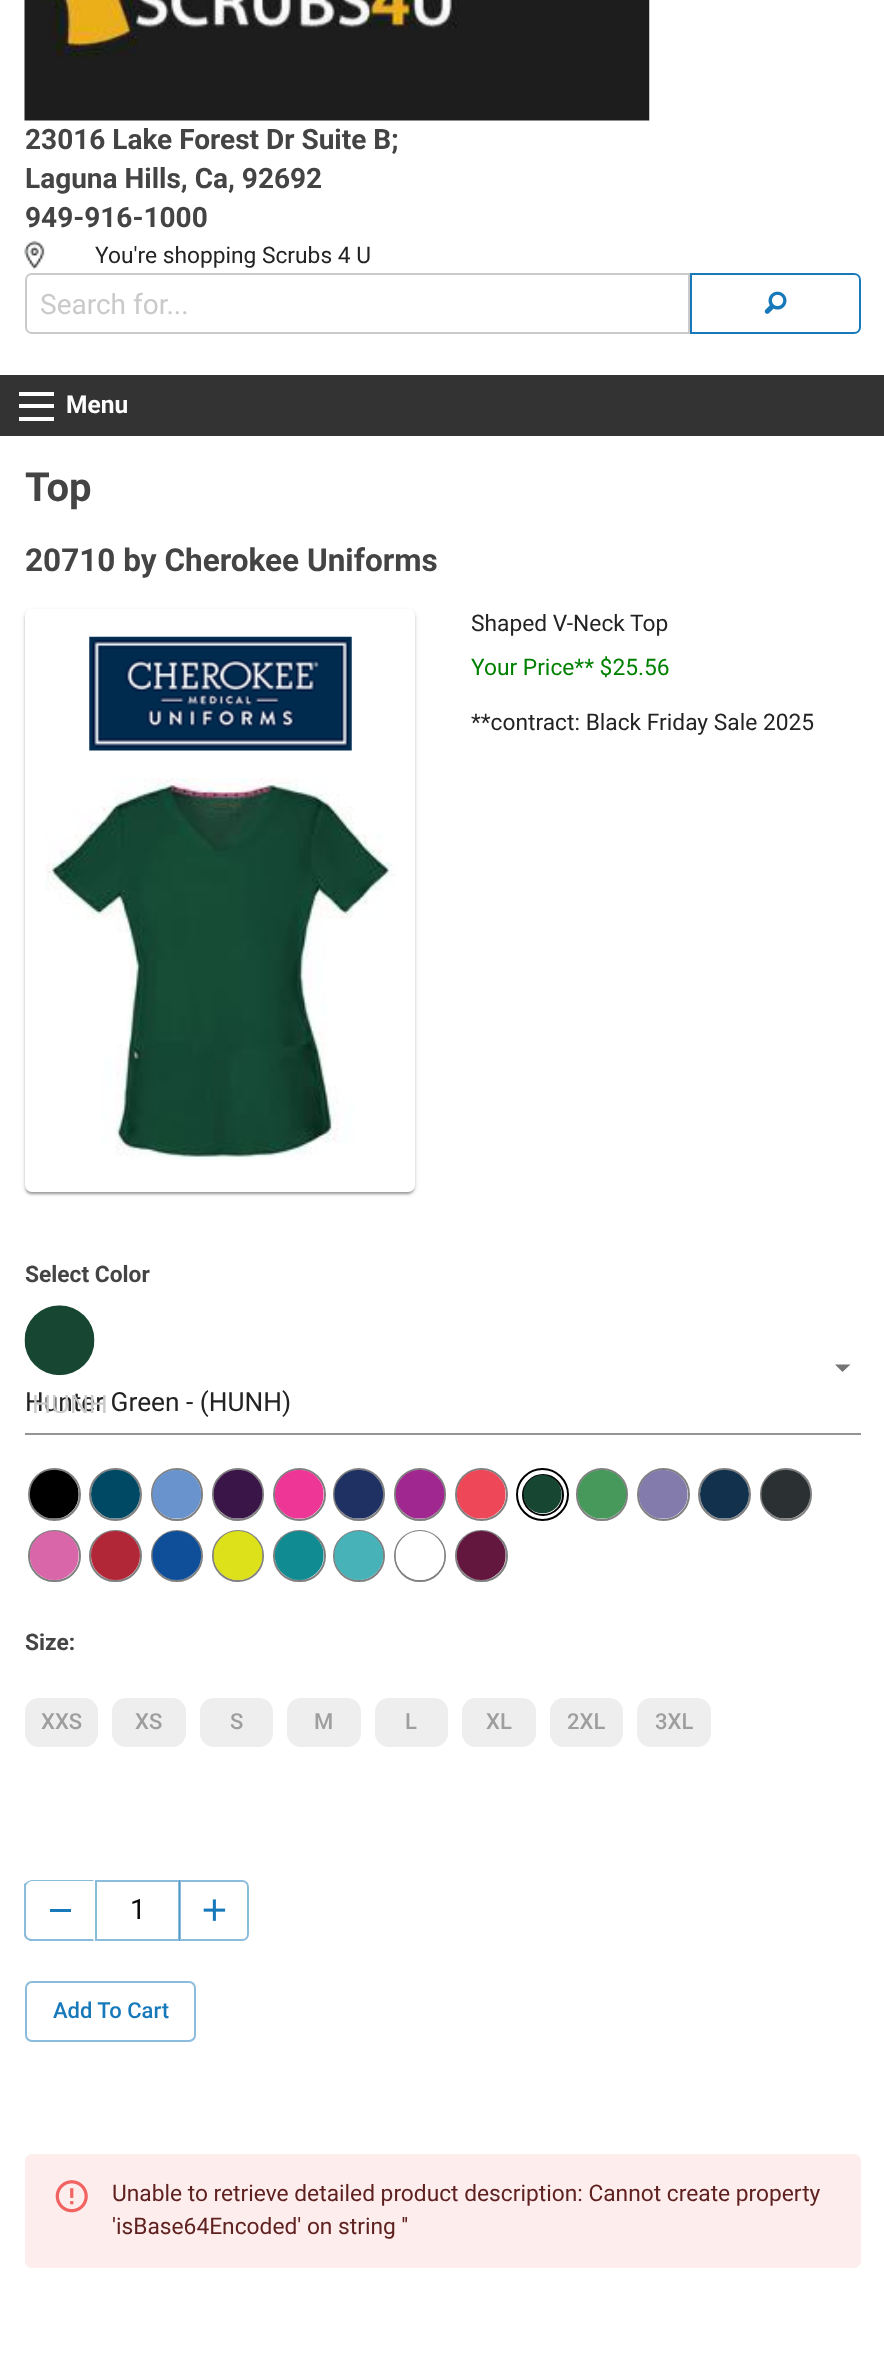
<svg xmlns="http://www.w3.org/2000/svg" xmlns:xlink="http://www.w3.org/1999/xlink" width="884" height="2359" viewBox="0 0 884 2359">
<style>
.cls-1{font:bold 28px Roboto;fill:#444444}
.cls-2{font:22.75px Roboto;fill:#232323}
.cls-3{font:28px Roboto;fill:#cacaca}
.cls-4{font:bold 24.5px Roboto;fill:#fefefe}
.cls-5{font:bold 40px Roboto;fill:#444444}
.cls-6{font:bold 31.5px Roboto;fill:#444444}
.cls-7{font:22.75px Roboto;fill:#008000}
.cls-8{font:bold 22.75px Roboto;fill:#444444}
.cls-9{font:26.25px Roboto;fill:#232323}
.cls-10{font:26.25px Liberation Sans;fill:#cacaca}
.cls-11{font:500 22px Roboto;fill:#9e9e9e}
.cls-12{font:28px Roboto;fill:#0a0a0a}
.cls-13{font:500 22px Roboto;fill:#1779ba}
.cls-14{font:22.75px Roboto;fill:#5f2120}
</style>
<rect width="100%" height="100%" fill="#ffffff"/>
<image xlink:href="image0.png" x="24" y="0" width="626" height="121"/>
<image xlink:href="image1.png" x="24" y="240" width="21" height="30"/>
<path fill="none" stroke="#cacaca" stroke-width="2" d="M32 274H689V333H32C28.5 333 26 330.5 26 327V280C26 276.5 28.5 274 32 274Z"/>
<path fill="none" stroke="#1779ba" stroke-width="2" d="M691 274H854C857.5 274 860 276.5 860 280V327C860 330.5 857.5 333 854 333H691Z"/>
<image xlink:href="image2.png" x="764" y="291" width="23" height="23"/>
<rect fill="#333333" x="0" y="375" width="884" height="61"/>
<rect fill="#fefefe" x="19" y="417" width="35" height="4"/>
<rect fill="#fefefe" x="19" y="404" width="35" height="4"/>
<rect fill="#fefefe" x="19" y="392" width="35" height="4"/>
<rect fill="#000000" fill-opacity="0.12" filter="blur(2.5px)" x="25" y="611" width="390" height="583" rx="7"/>
<rect fill="#000000" fill-opacity="0.14" filter="blur(1px)" x="25" y="611" width="390" height="583" rx="7"/>
<rect fill="#000000" fill-opacity="0.2" filter="blur(1px)" x="26" y="614" width="387" height="580" rx="5"/>
<rect fill="#ffffff" x="25" y="609" width="390" height="583" rx="7"/>
<image xlink:href="image3.png" x="89" y="636" width="263" height="115"/>
<image xlink:href="image4.png" x="45" y="778" width="351" height="382"/>
<path fill="#757575" d="M835 1364.5L842.5 1372L850.5 1364.5Z"/>
<image xlink:href="image5.png" x="24" y="1305" width="71" height="71"/>
<rect fill="#949494" x="25" y="1433" width="836" height="2"/>
<circle fill="none" stroke="#808080" stroke-width="2" cx="54.5" cy="1494.5" r="25.5"/>
<image xlink:href="image6.png" x="29" y="1469" width="50" height="50"/>
<circle fill="none" stroke="#808080" stroke-width="2" cx="115.5" cy="1494.5" r="25.5"/>
<image xlink:href="image7.png" x="91" y="1469" width="49" height="50"/>
<rect fill="none" stroke="#808080" stroke-width="2" x="152" y="1469" width="50" height="51" rx="25"/>
<image xlink:href="image8.png" x="152" y="1469" width="50" height="50"/>
<rect fill="none" stroke="#808080" stroke-width="2" x="213" y="1469" width="50" height="51" rx="25"/>
<image xlink:href="image9.png" x="213" y="1469" width="50" height="50"/>
<circle fill="none" stroke="#808080" stroke-width="2" cx="299.5" cy="1494.5" r="25.5"/>
<image xlink:href="image10.png" x="274" y="1469" width="50" height="50"/>
<rect fill="none" stroke="#808080" stroke-width="2" x="334" y="1469" width="50" height="51" rx="25"/>
<image xlink:href="image11.png" x="334" y="1469" width="50" height="50"/>
<rect fill="none" stroke="#808080" stroke-width="2" x="395" y="1469" width="50" height="51" rx="25"/>
<image xlink:href="image12.png" x="395" y="1469" width="50" height="50"/>
<circle fill="none" stroke="#808080" stroke-width="2" cx="481.5" cy="1494.5" r="25.5"/>
<image xlink:href="image13.png" x="456" y="1469" width="50" height="50"/>
<circle fill="none" stroke="#000000" stroke-width="2" cx="542.5" cy="1494.5" r="25.5"/>
<circle fill="none" stroke="#000000" stroke-width="2" cx="543" cy="1495" r="20"/>
<image xlink:href="image14.png" x="523" y="1475" width="39" height="39"/>
<rect fill="none" stroke="#808080" stroke-width="2" x="577" y="1469" width="50" height="51" rx="25"/>
<image xlink:href="image15.png" x="577" y="1470" width="50" height="49"/>
<circle fill="none" stroke="#808080" stroke-width="2" cx="663.5" cy="1494.5" r="25.5"/>
<image xlink:href="image16.png" x="639" y="1470" width="49" height="49"/>
<circle fill="none" stroke="#808080" stroke-width="2" cx="724.5" cy="1494.5" r="25.5"/>
<image xlink:href="image17.png" x="700" y="1469" width="49" height="50"/>
<rect fill="none" stroke="#808080" stroke-width="2" x="761" y="1469" width="50" height="51" rx="25"/>
<image xlink:href="image18.png" x="761" y="1469" width="50" height="50"/>
<rect fill="none" stroke="#808080" stroke-width="2" x="29" y="1531" width="51" height="50" rx="25"/>
<image xlink:href="image19.png" x="29" y="1531" width="50" height="49"/>
<rect fill="none" stroke="#808080" stroke-width="2" x="90" y="1531" width="51" height="50" rx="25"/>
<image xlink:href="image20.png" x="91" y="1531" width="49" height="49"/>
<circle fill="none" stroke="#808080" stroke-width="2" cx="177" cy="1556" r="25"/>
<image xlink:href="image21.png" x="152" y="1531" width="50" height="49"/>
<circle fill="none" stroke="#808080" stroke-width="2" cx="238" cy="1556" r="25"/>
<image xlink:href="image22.png" x="213" y="1531" width="50" height="49"/>
<rect fill="none" stroke="#808080" stroke-width="2" x="274" y="1531" width="51" height="50" rx="25"/>
<image xlink:href="image23.png" x="274" y="1531" width="50" height="49"/>
<circle fill="none" stroke="#808080" stroke-width="2" cx="359" cy="1556" r="25"/>
<image xlink:href="image24.png" x="334" y="1531" width="50" height="49"/>
<circle fill="none" stroke="#808080" stroke-width="2" cx="420" cy="1556" r="25"/>
<image xlink:href="image25.png" x="395" y="1531" width="50" height="49"/>
<rect fill="none" stroke="#808080" stroke-width="2" x="456" y="1531" width="51" height="50" rx="25"/>
<image xlink:href="image26.png" x="456" y="1531" width="50" height="49"/>
<rect fill="#eeeeee" x="25" y="1698" width="73" height="49" rx="14"/>
<rect fill="#eeeeee" x="112" y="1698" width="74" height="49" rx="14"/>
<rect fill="#eeeeee" x="200" y="1698" width="73" height="49" rx="14"/>
<rect fill="#eeeeee" x="287" y="1698" width="74" height="49" rx="14"/>
<rect fill="#eeeeee" x="375" y="1698" width="73" height="49" rx="14"/>
<rect fill="#eeeeee" x="462" y="1698" width="74" height="49" rx="14"/>
<rect fill="#eeeeee" x="550" y="1698" width="73" height="49" rx="14"/>
<rect fill="#eeeeee" x="637" y="1698" width="74" height="49" rx="14"/>
<path fill="#8bbcdd" d="M32 1880C30 1880 28 1881 27 1882L28 1883C29 1882 30 1881 32 1881H93L94 1880Z"/>
<path fill="#8bbcdd" d="M30 1941L26 1939L28 1938C29 1938 30 1939 32 1939H93L94 1941Z"/>
<path fill="#1779ba" fill-opacity="0.5" d="M24 1884L27 1882L28 1883C27 1884 26 1885 26 1886V1934C26 1935 27 1937 28 1938L26 1939L24 1936Z"/>
<rect fill="#1779ba" x="50" y="1909" width="21" height="3"/>
<rect fill="none" stroke="#8bbcdc" stroke-width="2" x="96" y="1881" width="83" height="59"/>
<path fill="none" stroke="#1779ba" stroke-opacity="0.5" stroke-width="2" d="M180 1881H242C245.5 1881 248 1883.5 248 1887V1934C248 1937.5 245.5 1940 242 1940H180Z"/>
<image xlink:href="image27.png" x="203" y="1899" width="23" height="22"/>
<rect fill="none" stroke="#8bbcdd" stroke-width="2" x="26" y="1982" width="169" height="59" rx="6"/>
<rect fill="#fdeded" x="25" y="2154" width="836" height="114" rx="7"/>
<image xlink:href="image28.png" x="55" y="2180" width="33" height="33"/>
<text class="cls-1"><tspan x="25" y="149">23016 Lake Forest Dr Suite B;</tspan><tspan x="25" y="188">Laguna Hills, Ca, 92692</tspan><tspan x="25" y="227">949-916-1000</tspan></text>
<text class="cls-2" x="95" y="263">You're shopping Scrubs 4 U</text>
<text class="cls-3" x="40" y="314">Search for...</text>
<text class="cls-4" x="66" y="413">Menu</text>
<text class="cls-5" x="25" y="501">Top</text>
<text class="cls-6" x="25" y="571">20710 by Cherokee Uniforms</text>
<text class="cls-2" x="471" y="631">Shaped V-Neck Top</text>
<text class="cls-7" x="471" y="675">Your Price** $25.56</text>
<text class="cls-2" x="471" y="730">**contract: Black Friday Sale 2025</text>
<text class="cls-8" x="25" y="1282">Select Color</text>
<text class="cls-9" x="25" y="1411">Hunter Green - (HUNH)</text>
<text class="cls-10" x="32" y="1413">HUNH</text>
<text class="cls-8" x="25" y="1650">Size:</text>
<text class="cls-11" x="41" y="1729">XXS</text>
<text class="cls-11" x="135" y="1729">XS</text>
<text class="cls-11" x="230" y="1729">S</text>
<text class="cls-11" x="314" y="1729">M</text>
<text class="cls-11" x="405" y="1729">L</text>
<text class="cls-11" x="486" y="1729">XL</text>
<text class="cls-11" x="567" y="1729">2XL</text>
<text class="cls-11" x="655" y="1729">3XL</text>
<text class="cls-12" x="130" y="1919">1</text>
<text class="cls-13" x="53" y="2018">Add To Cart</text>
<text class="cls-14"><tspan x="112" y="2201">Unable to retrieve detailed product description: Cannot create property</tspan><tspan x="112" y="2234">'isBase64Encoded' on string ''</tspan></text>
</svg>
